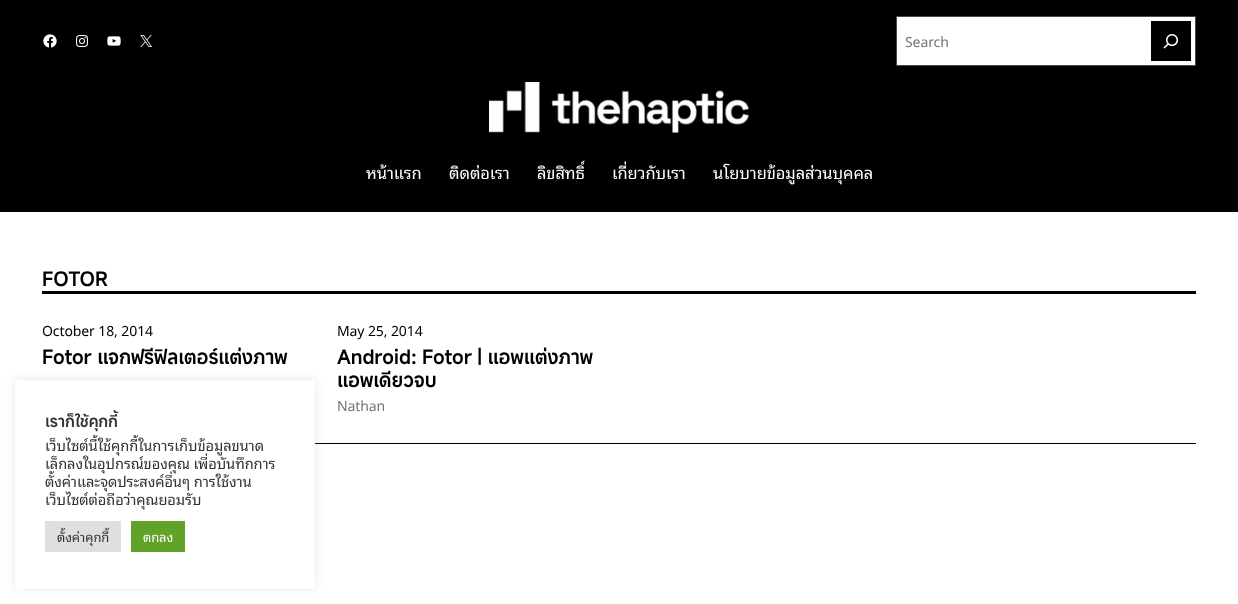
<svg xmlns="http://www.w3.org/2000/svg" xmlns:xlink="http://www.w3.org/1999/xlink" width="1238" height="604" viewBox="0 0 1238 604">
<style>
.cls-1{font:14px Noto Sans Thai Looped;letter-spacing:-0.1px;fill:#757575}
.cls-2{font:16.5px Noto Sans Thai Looped;letter-spacing:-0.1px;fill:#ffffff}
.cls-3{font:500 19.75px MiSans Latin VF;letter-spacing:-0.1px;fill:#000000}
.cls-4{font:14px Noto Sans Thai Looped;letter-spacing:-0.1px;fill:#000000}
.cls-5{font:500 16px MiSans Latin VF;letter-spacing:-0.1px;fill:#333333}
.cls-6{font:14.7px Noto Sans Thai Looped;letter-spacing:-0.1px;fill:#333333}
.cls-7{font:13px Noto Sans Thai Looped;letter-spacing:-0.1px;fill:#333333}
.cls-8{font:13px Noto Sans Thai Looped;letter-spacing:-0.1px;fill:#ffffff}
</style>
<rect width="100%" height="100%" fill="#ffffff"/>
<rect fill="#000000" x="0" y="0" width="1238" height="212"/>
<image xlink:href="image0.png" x="43" y="34" width="14" height="14"/>
<image xlink:href="image1.png" x="76" y="35" width="12" height="12"/>
<image xlink:href="image2.png" x="107" y="36" width="14" height="10"/>
<image xlink:href="image3.png" x="140" y="35" width="12" height="12"/>
<rect fill="#ffffff" stroke="#4a4a4a" x="896.5" y="16.5" width="299" height="49"/>
<rect fill="#000000" x="1151" y="21" width="40" height="40"/>
<image xlink:href="image4.png" x="1163" y="34" width="16" height="15"/>
<image xlink:href="image5.png" x="489" y="82" width="260" height="51"/>
<rect fill="#000000" x="42" y="291" width="1154" height="3"/>
<rect fill="#000000" x="315" y="443" width="881" height="1"/>
<rect fill="#acabab" fill-opacity="0.3" filter="blur(5px)" x="15" y="379" width="300" height="209"/>
<rect fill="#ffffff" x="15" y="380" width="300" height="209"/>
<rect fill="#dedfe0" x="45" y="521" width="76" height="31"/>
<rect fill="#61a229" x="131" y="521" width="54" height="31"/>
<text class="cls-1" x="905" y="47">Search</text>
<text class="cls-2" x="366" y="179">หน้าแรก</text>
<text class="cls-2" x="449" y="179">ติดต่อเรา</text>
<text class="cls-2" x="537" y="179">ลิขสิทธิ์</text>
<text class="cls-2" x="612" y="179">เกี่ยวกับเรา</text>
<text class="cls-2" x="713" y="179">นโยบายข้อมูลส่วนบุคคล</text>
<text class="cls-3" x="42" y="286">FOTOR</text>
<text class="cls-4" x="42" y="336">October 18, 2014</text>
<text class="cls-3" x="42" y="364">Fotor แจกฟรีฟิลเตอร์แต่งภาพ</text>
<text class="cls-4" x="337" y="336">May 25, 2014</text>
<text class="cls-3"><tspan x="337" y="364">Android: Fotor | แอพแต่งภาพ</tspan><tspan x="337" y="387">แอพเดียวจบ</tspan></text>
<text class="cls-1" x="337" y="411">Nathan</text>
<text class="cls-5" x="45" y="427">เราก็ใช้คุกกี้</text>
<text class="cls-6"><tspan x="45" y="451">เว็บไซต์นี้ใช้คุกกี้ในการเก็บข้อมูลขนาด</tspan><tspan x="45" y="469">เล็กลงในอุปกรณ์ของคุณ เพื่อบันทึกการ</tspan><tspan x="45" y="487">ตั้งค่าและจุดประสงค์อื่นๆ การใช้งาน</tspan><tspan x="45" y="505">เว็บไซต์ต่อถือว่าคุณยอมรับ</tspan></text>
<text class="cls-7" x="57" y="542">ตั้งค่าคุกกี้</text>
<text class="cls-8" x="143" y="542">ตกลง</text>
</svg>
